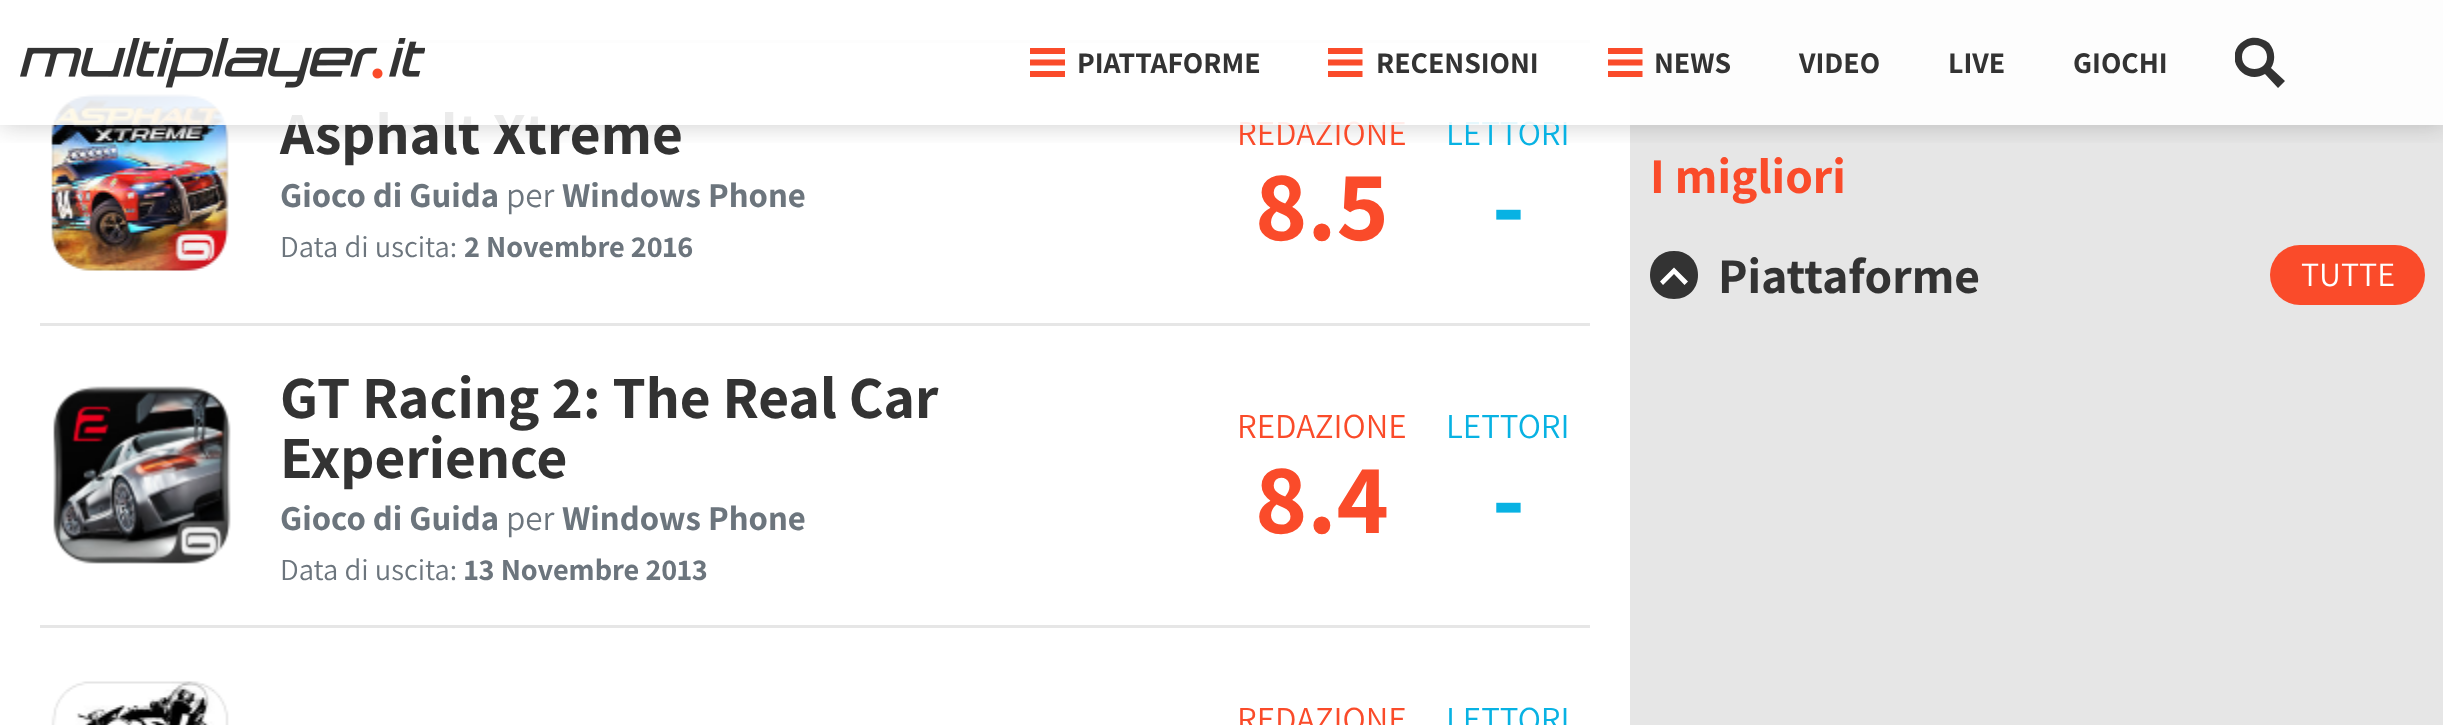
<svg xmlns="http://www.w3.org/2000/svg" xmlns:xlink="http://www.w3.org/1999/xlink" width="2443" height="725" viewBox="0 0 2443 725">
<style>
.cls-1{font:200 60px Assistant;fill:#333333}
.cls-2{font:200 35px Assistant;fill:#6c757d}
.cls-3{font:200 35px 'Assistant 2';fill:#6c757d}
.cls-4{font:200 30.5px 'Assistant 2';fill:#6c757d}
.cls-5{font:200 30.5px Assistant;fill:#6c757d}
.cls-6{font:200 35px 'Assistant 2';fill:#fa4b2a}
.cls-7{font:200 100px Assistant;fill:#fa4b2a}
.cls-8{font:200 35px 'Assistant 2';fill:#08b2e3}
.cls-9{font:200 30px Assistant;fill:#333333}
.cls-10{font:200 100px Assistant;fill:#08b2e3}
.cls-11{font:200 50px Assistant;fill:#fa4b2a}
.cls-12{font:200 50px Assistant;fill:#333333}
.cls-13{font:200 34px 'Assistant 2';fill:#ffffff}
</style>
<defs>
<clipPath id="clip1"><rect x="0" y="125" width="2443" height="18"/></clipPath>
<clipPath id="clip2"><rect x="2235" y="33" width="50" height="60"/></clipPath>
<clipPath id="clip3"><rect x="1608" y="45" width="35" height="35"/></clipPath>
<clipPath id="clip4"><rect x="1328" y="45" width="35" height="35"/></clipPath>
</defs>
<rect width="100%" height="100%" fill="#ffffff"/>
<rect fill="#e6e6e6" x="40" y="40" width="1550" height="3"/>
<image xlink:href="image1.png" x="51" y="94" width="178" height="177"/>
<rect fill="#e6e6e6" x="1630" y="0" width="813" height="725"/>
<g clip-path="url(#clip1)">
<rect fill="#333333" fill-opacity="0.25" filter="blur(12.5px)" x="0" y="0" width="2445" height="125"/>
</g>
<rect fill="#e6e6e6" x="40" y="323" width="1550" height="3"/>
<rect fill="#e6e6e6" x="40" y="625" width="1550" height="3"/>
<image xlink:href="image2.png" x="53" y="386" width="178" height="178"/>
<image xlink:href="image3.png" x="51" y="681" width="178" height="44"/>
<path fill="#333333" d="M1674 299C1642 299 1642 251 1674 251C1706 251 1706 299 1674 299Z"/>
<path fill="#ffffff" d="M1688 281.5L1684.5 285L1674 274L1663 285L1660 281.5L1674 267.5Z"/>
<rect fill="#fa4b2a" x="2270" y="245" width="155" height="60" rx="30"/>
<text class="cls-1" x="280" y="154">Asphalt Xtreme</text>
<text class="cls-2" x="280" y="207">Gioco di Guida</text>
<text class="cls-3" x="506" y="207">per</text>
<text class="cls-2" x="562" y="207">Windows Phone</text>
<text class="cls-4" x="280" y="257">Data di uscita:</text>
<text class="cls-5" x="464" y="257">2 Novembre 2016</text>
<text class="cls-6" x="1237" y="145">REDAZIONE</text>
<text class="cls-7" x="1255" y="240">8.5</text>
<text class="cls-8" x="1446" y="145">LETTORI</text>
<rect fill="#ffffff" fill-opacity="0.9" x="40" y="0" width="2403" height="125"/>
<g clip-path="url(#clip2)">
<path fill="#333333" d="M2285 81L2271 68C2276 60 2275 50 2269 43C2264 39 2257 37 2251 38C2246 39 2241 42 2238 46C2226 64 2247 85 2265 74L2278 88ZM2242 57C2242 41 2267 41 2267 57C2267 73 2242 73 2242 57Z"/>
</g>
<g clip-path="url(#clip3)">
<path fill="#fa4b2a" d="M1642.5 54H1607.5V48H1642.5ZM1642.5 59.5H1607.5V65.5H1642.5ZM1642.5 71H1607.5V77H1642.5Z"/>
</g>
<g clip-path="url(#clip4)">
<path fill="#fa4b2a" d="M1362.5 54H1327.5V48H1362.5ZM1362.5 59.5H1327.5V65.5H1362.5ZM1362.5 71H1327.5V77H1362.5Z"/>
</g>
<path fill="#fa4b2a" d="M1065 54H1030V48H1065ZM1065 59.5H1030V65.5H1065ZM1065 71H1030V77H1065Z"/>
<image xlink:href="image0.png" x="20" y="38" width="405" height="50"/>
<text class="cls-9" x="2073" y="73">GIOCHI</text>
<text class="cls-9" x="1948" y="73">LIVE</text>
<text class="cls-9" x="1799" y="73">VIDEO</text>
<text class="cls-9" x="1654" y="73">NEWS</text>
<text class="cls-9" x="1376" y="73">RECENSIONI</text>
<text class="cls-9" x="1077" y="73">PIATTAFORME</text>
<text class="cls-10" x="1492" y="240">-</text>
<text class="cls-1"><tspan x="280" y="418">GT Racing 2: The Real Car</tspan><tspan x="280" y="478">Experience</tspan></text>
<text class="cls-2" x="280" y="530">Gioco di Guida</text>
<text class="cls-3" x="506" y="530">per</text>
<text class="cls-2" x="562" y="530">Windows Phone</text>
<text class="cls-4" x="280" y="580">Data di uscita:</text>
<text class="cls-5" x="464" y="580">13 Novembre 2013</text>
<text class="cls-6" x="1237" y="438">REDAZIONE</text>
<text class="cls-7" x="1255" y="533">8.4</text>
<text class="cls-8" x="1446" y="438">LETTORI</text>
<text class="cls-10" x="1492" y="533">-</text>
<text class="cls-6" x="1237" y="731">REDAZIONE</text>
<text class="cls-8" x="1446" y="731">LETTORI</text>
<text class="cls-11" x="1650" y="193">I migliori</text>
<text class="cls-12" x="1718" y="293">Piattaforme</text>
<text class="cls-13" x="2301" y="286">TUTTE</text>
</svg>
